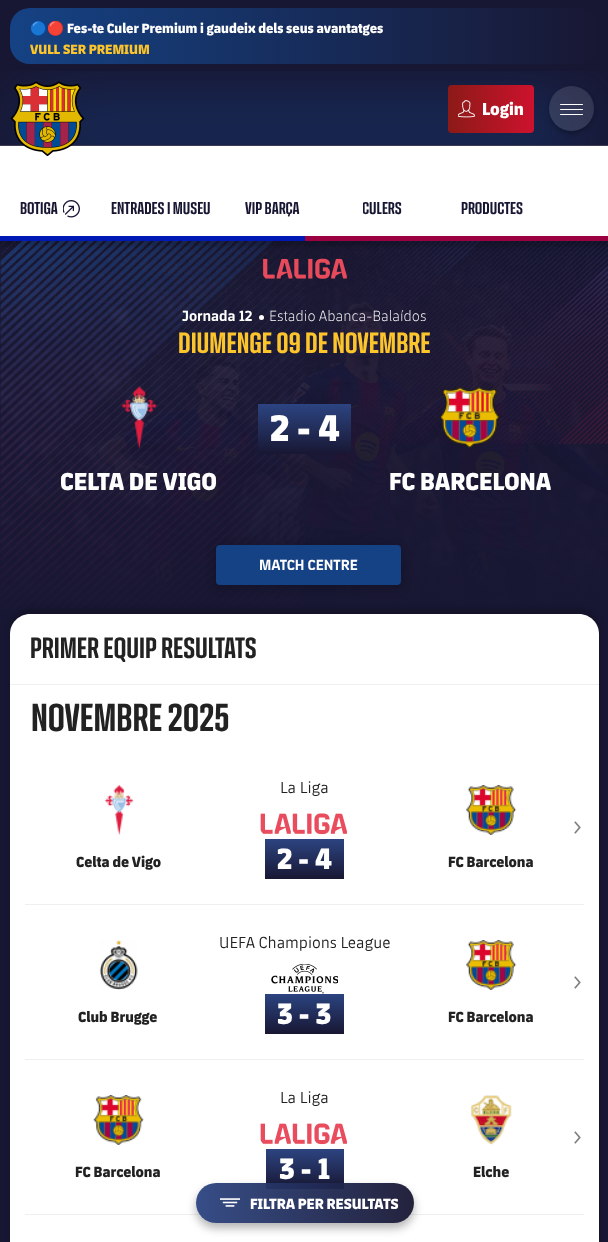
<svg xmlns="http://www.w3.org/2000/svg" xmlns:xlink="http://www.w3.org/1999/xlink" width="608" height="1242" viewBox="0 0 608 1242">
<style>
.cls-1{font:bold 13.75px Noto Color Emoji;fill:#ffffff}
.cls-2{font:800 13.75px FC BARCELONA;fill:#ffffff}
.cls-3{font:800 13.75px FC BARCELONA;fill:#fdc52c}
.cls-4{font:800 17.5px FC BARCELONA;fill:#ffffff}
.cls-5{font:bold 17.5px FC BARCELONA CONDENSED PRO;fill:#181733}
.cls-6{font:bold 15px FC BARCELONA;fill:#ffffff}
.cls-7{font:300 15px FC BARCELONA;fill:#ffffff}
.cls-8{font:bold 30px FC BARCELONA CONDENSED PRO;fill:#fdc52c}
.cls-9{font:800 38px FC BARCELONA;fill:#ffffff}
.cls-10{font:800 25px FC BARCELONA;fill:#ffffff}
.cls-11{font:bold 30px FC BARCELONA CONDENSED PRO;fill:#222222}
.cls-12{font:bold 40px FC BARCELONA CONDENSED PRO;fill:#222222}
.cls-13{font:16.25px FC BARCELONA;fill:#222222}
.cls-14{font:800 30px FC BARCELONA;fill:#ffffff}
.cls-15{font:800 15px FC BARCELONA;fill:#222222}
.cls-16{font:800 15px FC BARCELONA;fill:#ffffff}
</style>
<defs>
<linearGradient id="g1" gradientUnits="userSpaceOnUse" x1="10" y1="36" x2="599" y2="36"><stop offset="0" stop-color="#154284"/><stop offset="1" stop-color="#181733"/></linearGradient>
<linearGradient id="g2" gradientUnits="userSpaceOnUse" x1="304" y1="615" x2="304" y2="229"><stop offset="0" stop-color="#181733"/><stop offset="0.7" stop-color="#181733" stop-opacity="0.45"/><stop offset="1" stop-color="#181733" stop-opacity="0"/></linearGradient>
<clipPath id="clip1"><rect x="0" y="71" width="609" height="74"/></clipPath>
<linearGradient id="g3" gradientUnits="userSpaceOnUse" x1="448" y1="109" x2="534" y2="109"><stop offset="0" stop-color="#8c1a17"/><stop offset="1" stop-color="#cd122d"/></linearGradient>
<clipPath id="clip2"><path d="M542 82H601V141H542ZM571.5 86C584 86 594 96 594 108.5C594 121 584 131 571.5 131C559 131 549 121 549 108.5C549 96 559 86 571.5 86Z" clip-rule="evenodd"/></clipPath>
<linearGradient id="g4" gradientUnits="userSpaceOnUse" x1="304" y1="404" x2="304" y2="454"><stop offset="0" stop-color="#2c4481"/><stop offset="1" stop-color="#181733"/></linearGradient>
<linearGradient id="g5" gradientUnits="userSpaceOnUse" x1="304" y1="839" x2="304" y2="879"><stop offset="0" stop-color="#2c4481"/><stop offset="1" stop-color="#181733"/></linearGradient>
<linearGradient id="g6" gradientUnits="userSpaceOnUse" x1="304" y1="994" x2="304" y2="1034"><stop offset="0" stop-color="#2c4481"/><stop offset="1" stop-color="#181733"/></linearGradient>
<linearGradient id="g7" gradientUnits="userSpaceOnUse" x1="305" y1="1149" x2="305" y2="1189"><stop offset="0" stop-color="#2c4481"/><stop offset="1" stop-color="#181733"/></linearGradient>
<clipPath id="clip3"><path d="M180 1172H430V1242H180ZM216 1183H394C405 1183 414 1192 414 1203C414 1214 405 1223 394 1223H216C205 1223 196 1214 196 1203C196 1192 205 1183 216 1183Z" clip-rule="evenodd"/></clipPath>
<linearGradient id="g8" gradientUnits="userSpaceOnUse" x1="196" y1="1203" x2="414" y2="1203"><stop offset="0" stop-color="#2c4481" stop-opacity="0.95"/><stop offset="1" stop-color="#181733" stop-opacity="0.95"/></linearGradient>
<clipPath id="clip4"><rect x="363" y="200" width="40" height="18"/></clipPath>
</defs>
<rect width="100%" height="100%" fill="#181733"/>
<rect fill="url(#g1)" x="10" y="8" width="589" height="56" rx="20"/>
<rect fill="#3b3a52" x="0" y="145" width="608" height="1"/>
<rect fill="#ffffff" x="0" y="146" width="608" height="90"/>
<image xlink:href="image2.png" x="63" y="200" width="17" height="18"/>
<image xlink:href="image3.png" x="0" y="241" width="305" height="371"/>
<image xlink:href="image4.png" x="0" y="241" width="608" height="371"/>
<image xlink:href="image5.png" x="328" y="241" width="280" height="203"/>
<rect fill="url(#g2)" x="0" y="241" width="608" height="371"/>
<rect fill="#000000" fill-opacity="0.25" filter="blur(2.5px)" x="0" y="240" width="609" height="5"/>
<rect fill="#0018b4" x="0" y="236" width="305" height="5"/>
<rect fill="#9b0041" x="305" y="236" width="303" height="5"/>
<image xlink:href="image6.png" x="263" y="258" width="84" height="21"/>
<g clip-path="url(#clip1)">
<rect fill="#154284" filter="blur(37.5px)" x="25" y="113" width="559" height="32" rx="16"/>
</g>
<image xlink:href="image0.png" x="10" y="81" width="75" height="75"/>
<rect fill="url(#g3)" x="448" y="85" width="86" height="48" rx="4"/>
<image xlink:href="image1.png" x="458" y="100" width="17" height="18"/>
<g clip-path="url(#clip2)">
<rect fill="#000000" fill-opacity="0.25" filter="blur(2px)" x="549" y="89" width="45" height="45" rx="22.5"/>
</g>
<circle fill="#ffffff" fill-opacity="0.12" cx="571.5" cy="108.5" r="22.5"/>
<rect fill="#ffffff" x="560" y="104" width="23" height="1" rx="0.5"/>
<rect fill="#ffffff" x="560" y="109" width="23" height="1" rx="0.5"/>
<rect fill="#ffffff" x="560" y="114" width="23" height="1" rx="0.5"/>
<circle fill="#ffffff" cx="261.5" cy="317.5" r="2.5"/>
<rect fill="url(#g4)" x="258" y="404" width="93" height="50"/>
<image xlink:href="image7.png" x="121" y="386" width="37" height="63"/>
<image xlink:href="image8.png" x="439" y="386" width="62" height="63"/>
<rect fill="#000000" fill-opacity="0.2" filter="blur(4px)" x="215" y="546" width="188" height="43" rx="5"/>
<rect fill="#154284" x="216" y="545" width="185" height="40" rx="4"/>
<rect fill="#000000" fill-opacity="0.2" filter="blur(2.5px)" x="10" y="609" width="589" height="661" rx="20"/>
<path fill="#ffffff" d="M30 614H579C590 614 599 623 599 634V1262H10V634C10 623 19 614 30 614Z"/>
<rect fill="#efefef" x="10" y="684" width="589" height="1"/>
<rect fill="#efefef" x="25" y="904" width="559" height="1"/>
<image xlink:href="image9.png" x="260" y="813" width="87" height="22"/>
<rect fill="url(#g5)" x="265" y="839" width="79" height="40"/>
<image xlink:href="image10.png" x="574" y="821" width="7" height="13"/>
<image xlink:href="image11.png" x="104" y="785" width="30" height="50"/>
<image xlink:href="image12.png" x="466" y="785" width="51" height="50"/>
<rect fill="#efefef" x="25" y="1059" width="559" height="1"/>
<image xlink:href="image13.png" x="271" y="964" width="67" height="30"/>
<rect fill="url(#g6)" x="265" y="994" width="79" height="40"/>
<image xlink:href="image10.png" x="574" y="976" width="7" height="13"/>
<image xlink:href="image14.png" x="99" y="940" width="39" height="50"/>
<image xlink:href="image12.png" x="466" y="940" width="51" height="50"/>
<rect fill="#efefef" x="25" y="1214" width="559" height="1"/>
<image xlink:href="image9.png" x="260" y="1123" width="87" height="22"/>
<rect fill="url(#g7)" x="266" y="1149" width="78" height="40"/>
<image xlink:href="image10.png" x="574" y="1131" width="7" height="13"/>
<image xlink:href="image15.png" x="93" y="1095" width="51" height="50"/>
<image xlink:href="image16.png" x="471" y="1095" width="41" height="50"/>
<g clip-path="url(#clip3)">
<rect fill="#000000" fill-opacity="0.3" filter="blur(5px)" x="196" y="1188" width="218" height="40" rx="20"/>
</g>
<rect fill="url(#g8)" x="196" y="1183" width="218" height="40" rx="20"/>
<image xlink:href="image17.png" x="220" y="1198" width="20" height="9"/>
<text class="cls-1" x="30" y="33">🔵🔴</text>
<text class="cls-2" x="67" y="33">Fes-te Culer Premium i gaudeix dels seus avantatges</text>
<text class="cls-3" x="30" y="54">VULL SER PREMIUM</text>
<text class="cls-4" x="482" y="115">Login</text>
<text class="cls-5" x="20" y="214">BOTIGA</text>
<text class="cls-5" x="111" y="214">ENTRADES I MUSEU</text>
<text class="cls-5" x="245" y="214">VIP BARÇA</text>
<g clip-path="url(#clip4)">
<text class="cls-5" x="362" y="214">CULERS</text>
</g>
<text class="cls-5" x="461" y="214">PRODUCTES</text>
<text class="cls-6" x="182" y="321">Jornada 12</text>
<text class="cls-7" x="269" y="321">Estadio Abanca-Balaídos</text>
<text class="cls-8" x="178" y="353">DIUMENGE 09 DE NOVEMBRE</text>
<text class="cls-9" x="270" y="441">2 - 4</text>
<text class="cls-10" x="60" y="490">CELTA DE VIGO</text>
<text class="cls-10" x="389" y="490">FC BARCELONA</text>
<text class="cls-6" x="259" y="570">MATCH CENTRE</text>
<text class="cls-11" x="30" y="658">PRIMER EQUIP RESULTATS</text>
<text class="cls-12" x="31" y="731">NOVEMBRE 2025</text>
<text class="cls-13" x="280" y="793">La Liga</text>
<text class="cls-14" x="277" y="869">2 - 4</text>
<text class="cls-15" x="76" y="867">Celta de Vigo</text>
<text class="cls-15" x="448" y="867">FC Barcelona</text>
<text class="cls-13" x="219" y="948">UEFA Champions League</text>
<text class="cls-14" x="277" y="1024">3 - 3</text>
<text class="cls-15" x="78" y="1022">Club Brugge</text>
<text class="cls-15" x="448" y="1022">FC Barcelona</text>
<text class="cls-13" x="280" y="1103">La Liga</text>
<text class="cls-14" x="279" y="1179">3 - 1</text>
<text class="cls-15" x="75" y="1177">FC Barcelona</text>
<text class="cls-15" x="473" y="1177">Elche</text>
<text class="cls-16" x="250" y="1209">FILTRA PER RESULTATS</text>
</svg>
